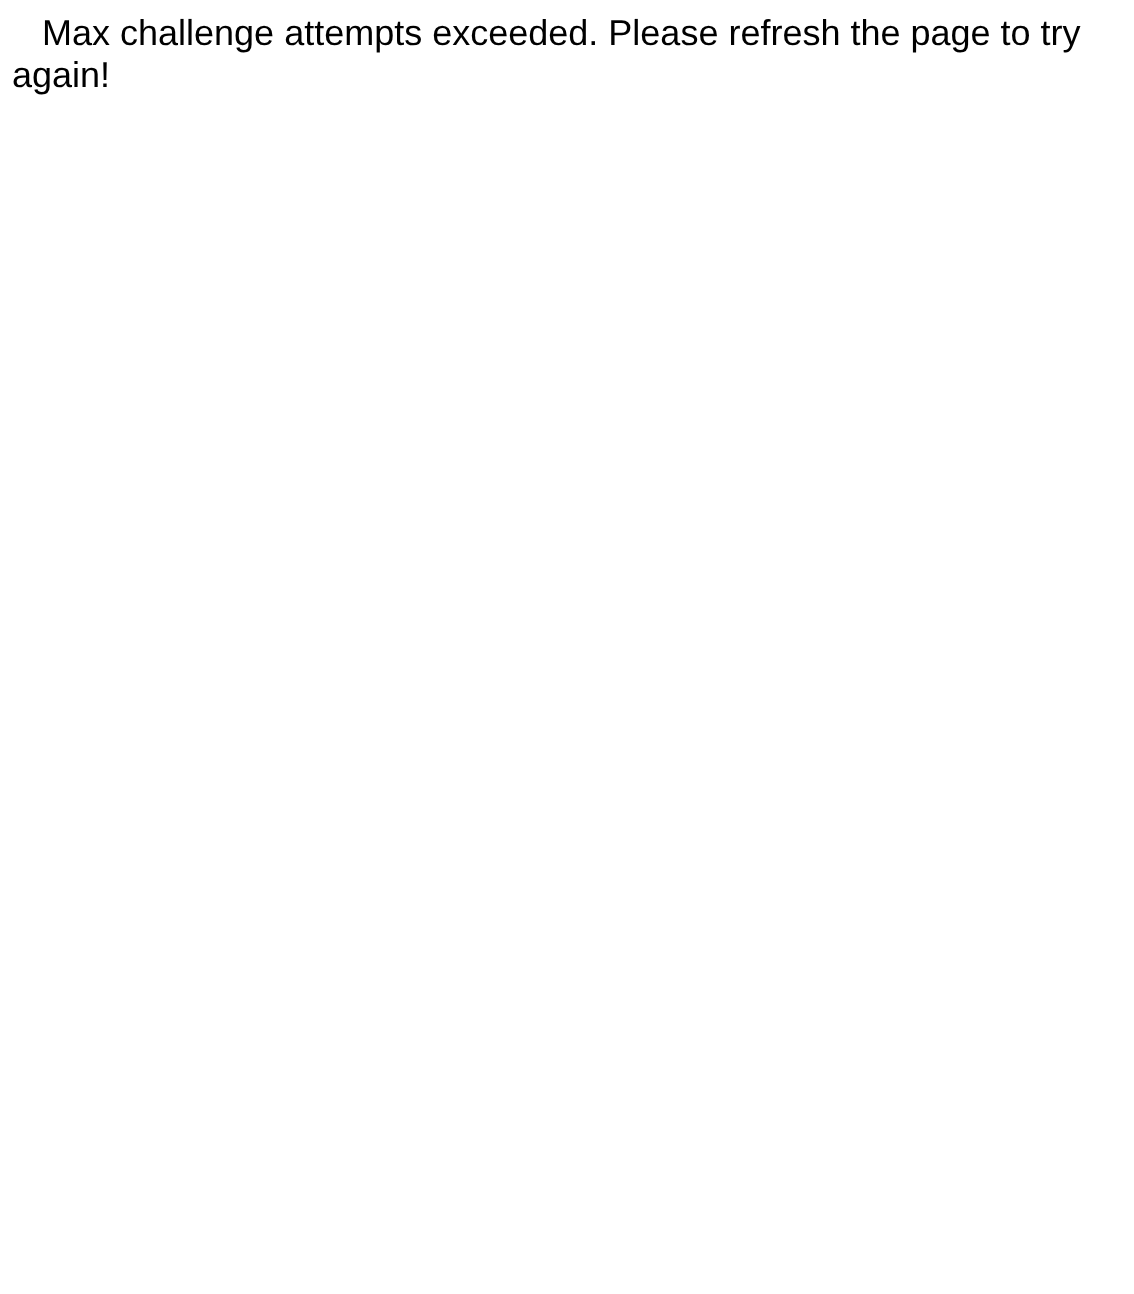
<svg xmlns="http://www.w3.org/2000/svg" xmlns:xlink="http://www.w3.org/1999/xlink" width="1134" height="1294" viewBox="0 0 1134 1294">
<style>
.cls-1{font:36px Liberation Sans;fill:#000000}
</style>
<rect width="100%" height="100%" fill="#ffffff"/>
<text class="cls-1" x="42" y="45">Max challenge attempts exceeded. Please refresh the page to try</text>
<text class="cls-1" x="12" y="87">again!</text>
</svg>
